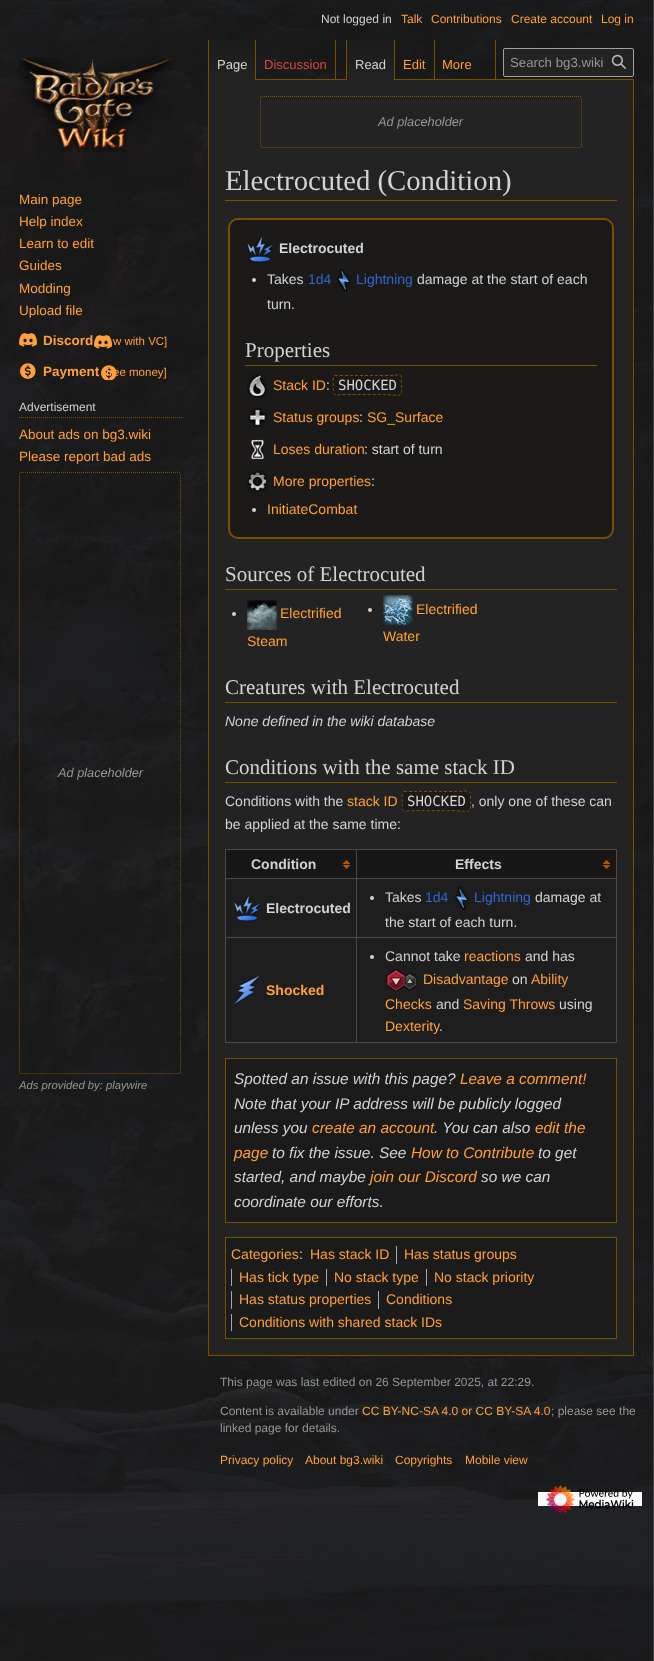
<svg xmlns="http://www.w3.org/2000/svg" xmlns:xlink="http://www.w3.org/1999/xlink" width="654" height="1661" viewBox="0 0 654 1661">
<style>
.cls-1{font:12px Liberation Sans;fill:#d2d2d2}
.cls-2{font:12px Liberation Sans;fill:#ffa03c}
.cls-3{font:13px Liberation Sans;fill:#d2d2d2}
.cls-4{font:13px Liberation Sans;fill:#dc4646}
.cls-5{font:13px Liberation Sans;fill:#ffa03c}
.cls-6{font:13.25px Liberation Sans;fill:#969696}
.cls-7{font:13.5px Liberation Sans;fill:#ffa03c}
.cls-8{font:bold 13.5px Liberation Sans;fill:#ffa03c}
.cls-9{font:11.5px Liberation Sans;fill:#ffa03c}
.cls-10{font:italic 12.75px Liberation Sans;fill:#969696}
.cls-11{font:italic 11.25px Liberation Sans;fill:#969696}
.cls-12{font:28.75px Liberation Serif;fill:#d2d2d2}
.cls-13{font:bold 14px Liberation Sans;fill:#d2d2d2}
.cls-14{font:14px Liberation Sans;fill:#d2d2d2}
.cls-15{font:14px Liberation Sans;fill:#3366cc}
.cls-16{font:21px Liberation Serif;fill:#d2d2d2}
.cls-17{font:14px Liberation Sans;fill:#ffa03c}
.cls-18{font:14px DejaVu Sans Mono;fill:#d2d2d2}
.cls-19{font:italic 14px Liberation Sans;fill:#d2d2d2}
.cls-20{font:bold 14px Liberation Sans;fill:#ffa03c}
.cls-21{font:italic 15.4px Liberation Sans;fill:#d2d2d2}
.cls-22{font:italic 15.4px Liberation Sans;fill:#ffa03c}
.cls-23{font:12px Liberation Sans;fill:#969696}
</style>
<defs>
<linearGradient id="g1" gradientUnits="userSpaceOnUse" x1="232" y1="40" x2="232" y2="80"><stop offset="0" stop-color="#1b1b1b"/><stop offset="1" stop-color="#232323"/></linearGradient>
<linearGradient id="g2" gradientUnits="userSpaceOnUse" x1="370" y1="40" x2="370" y2="80"><stop offset="0" stop-color="#1b1b1b"/><stop offset="1" stop-color="#232323"/></linearGradient>
</defs>
<rect width="100%" height="100%" fill="#ffffff"/>
<image xlink:href="image0.png" x="0" y="0" width="654" height="1661"/>
<rect fill="#232323" stroke="#785000" x="208.5" y="79.5" width="425" height="1276"/>
<rect fill="url(#g1)" x="209" y="40" width="46" height="40"/>
<rect fill="#785000" x="255" y="40" width="1" height="40"/>
<rect fill="#785000" x="208" y="40" width="1" height="40"/>
<rect fill="#785000" x="335" y="40" width="1" height="40"/>
<rect fill="url(#g2)" x="347" y="40" width="47" height="40"/>
<rect fill="#785000" x="394" y="40" width="1" height="40"/>
<rect fill="#785000" x="346" y="40" width="1" height="40"/>
<rect fill="#785000" x="434" y="40" width="1" height="40"/>
<rect fill="#785000" x="495" y="40" width="1" height="40"/>
<rect fill="#232323" stroke="#a0a0a0" x="503.5" y="48.5" width="130" height="28" rx="1.5"/>
<image xlink:href="image1.png" x="611" y="54" width="15" height="15"/>
<image xlink:href="image2.png" x="19" y="57" width="154" height="95"/>
<image xlink:href="image3.png" x="19" y="333" width="93" height="16"/>
<image xlink:href="image4.png" x="20" y="363" width="97" height="17"/>
<path fill="none" stroke="#785000" stroke-dasharray="1 1" d="M19 417.5H182"/>
<path fill="none" stroke="#785000" stroke-dasharray="1 1" d="M21 472.5H179C180 472.5 180.5 473 180.5 474V1072C180.5 1073 180 1073.5 179 1073.5H21C20 1073.5 19.5 1073 19.5 1072V474C19.5 473 20 472.5 21 472.5Z"/>
<path fill="none" stroke="#785000" stroke-dasharray="1 1" d="M262 96.5H580C581 96.5 581.5 97 581.5 98V146C581.5 147 581 147.5 580 147.5H262C261 147.5 260.5 147 260.5 146V98C260.5 97 261 96.5 262 96.5Z"/>
<rect fill="#785000" x="225" y="200" width="392" height="1"/>
<rect fill="#1b1a19" stroke="#785000" stroke-width="2" x="229" y="219" width="384" height="319" rx="9"/>
<image xlink:href="image5.png" x="247" y="237" width="26" height="26"/>
<circle fill="#d2d2d2" cx="254" cy="280" r="2"/>
<image xlink:href="image6.png" x="337" y="269" width="14" height="23"/>
<rect fill="#785000" x="245" y="365" width="352" height="1"/>
<image xlink:href="image7.png" x="247" y="374" width="21" height="24"/>
<path fill="none" stroke="#785000" stroke-dasharray="3 2" d="M335 375.5H389C398.5 375.5 401.5 372.5 401.5 379.5C401.5 400.5 405 394.5 378.5 394.5H346C336.5 394.5 333.5 397.5 333.5 390.5C333.5 388 332 375.5 335 375.5Z"/>
<image xlink:href="image8.png" x="248" y="408" width="19" height="19"/>
<image xlink:href="image9.png" x="251" y="439" width="13" height="21"/>
<image xlink:href="image10.png" x="247" y="471" width="21" height="21"/>
<circle fill="#d2d2d2" cx="254" cy="510" r="2"/>
<rect fill="#785000" x="225" y="589" width="392" height="1"/>
<circle fill="#d2d2d2" cx="234" cy="614" r="2"/>
<image xlink:href="image11.png" x="247" y="600" width="30" height="30"/>
<circle fill="#d2d2d2" cx="370" cy="610" r="2"/>
<image xlink:href="image12.png" x="383" y="595" width="30" height="30"/>
<rect fill="#785000" x="225" y="702" width="392" height="1"/>
<rect fill="#785000" x="225" y="782" width="392" height="1"/>
<rect fill="#1b1b1b" x="402" y="791" width="69" height="20" rx="2"/>
<path fill="none" stroke="#785000" stroke-dasharray="3 2" d="M404 791.5H458C467.5 791.5 470.5 788.5 470.5 795.5C470.5 816.5 474 810.5 447.5 810.5H415C405.5 810.5 402.5 813.5 402.5 806.5C402.5 804 401 791.5 404 791.5Z"/>
<rect fill="#171717" x="226" y="850" width="130" height="28"/>
<image xlink:href="image13.png" x="342" y="860" width="9" height="9"/>
<rect fill="#4d4a46" x="356" y="849" width="261" height="1"/>
<rect fill="#4d4a46" x="356" y="878" width="261" height="1"/>
<rect fill="#4d4a46" x="356" y="937" width="261" height="1"/>
<rect fill="#4d4a46" x="616" y="937" width="1" height="106"/>
<rect fill="#4d4a46" x="356" y="1042" width="261" height="1"/>
<rect fill="#4d4a46" x="356" y="937" width="1" height="106"/>
<rect fill="#4d4a46" x="225" y="937" width="132" height="1"/>
<rect fill="#4d4a46" x="356" y="878" width="1" height="60"/>
<rect fill="#4d4a46" x="225" y="878" width="132" height="1"/>
<rect fill="#4d4a46" x="356" y="849" width="1" height="30"/>
<rect fill="#4d4a46" x="225" y="849" width="132" height="1"/>
<rect fill="#4d4a46" x="225" y="1042" width="132" height="1"/>
<rect fill="#4d4a46" x="225" y="937" width="1" height="106"/>
<rect fill="#4d4a46" x="225" y="878" width="1" height="60"/>
<rect fill="#4d4a46" x="225" y="849" width="1" height="30"/>
<rect fill="#171717" x="357" y="850" width="259" height="28"/>
<image xlink:href="image13.png" x="602" y="860" width="9" height="9"/>
<rect fill="#4d4a46" x="616" y="878" width="1" height="60"/>
<rect fill="#4d4a46" x="616" y="849" width="1" height="30"/>
<rect fill="#1f1e1e" x="226" y="879" width="130" height="58"/>
<image xlink:href="image14.png" x="234" y="896" width="26" height="26"/>
<rect fill="#1f1e1e" x="357" y="879" width="259" height="58"/>
<circle fill="#d2d2d2" cx="372" cy="898" r="2"/>
<image xlink:href="image15.png" x="455" y="887" width="14" height="23"/>
<rect fill="#1f1e1e" x="226" y="938" width="130" height="104"/>
<image xlink:href="image16.png" x="234" y="975" width="26" height="29"/>
<rect fill="#1f1e1e" x="357" y="938" width="259" height="104"/>
<circle fill="#d2d2d2" cx="372" cy="957" r="2"/>
<image xlink:href="image17.png" x="386" y="969" width="32" height="23"/>
<rect fill="#1b1b1b" stroke="#785000" x="225.5" y="1058.5" width="391" height="164"/>
<rect fill="#1b1b1b" stroke="#785000" x="225.5" y="1237.5" width="391" height="101"/>
<rect fill="#a2a9b1" x="396" y="1246" width="1" height="18"/>
<rect fill="#a2a9b1" x="231" y="1269" width="1" height="17"/>
<rect fill="#a2a9b1" x="326" y="1269" width="1" height="17"/>
<rect fill="#a2a9b1" x="426" y="1269" width="1" height="17"/>
<rect fill="#a2a9b1" x="231" y="1291" width="1" height="18"/>
<rect fill="#a2a9b1" x="378" y="1291" width="1" height="18"/>
<rect fill="#a2a9b1" x="231" y="1314" width="1" height="17"/>
<rect fill="#f8f9fa" x="538" y="1492" width="104" height="14"/>
<image xlink:href="image18.png" x="546" y="1485" width="88" height="29"/>
<text class="cls-1" x="321" y="23">Not logged in</text>
<text class="cls-2" x="401" y="23">Talk</text>
<text class="cls-2" x="431" y="23">Contributions</text>
<text class="cls-2" x="511" y="23">Create account</text>
<text class="cls-2" x="601" y="23">Log in</text>
<text class="cls-3" x="217" y="69">Page</text>
<text class="cls-4" x="264" y="69">Discussion</text>
<text class="cls-3" x="355" y="69">Read</text>
<text class="cls-5" x="403" y="69">Edit</text>
<text class="cls-5" x="442" y="69">More</text>
<text class="cls-6" x="510" y="67">Search bg3.wiki</text>
<text class="cls-7"><tspan x="19" y="204">Main page</tspan><tspan x="19" y="226">Help index</tspan><tspan x="19" y="248">Learn to edit</tspan><tspan x="19" y="270">Guides</tspan><tspan x="19" y="293">Modding</tspan><tspan x="19" y="315">Upload file</tspan></text>
<text class="cls-8" x="43" y="345">Discord</text>
<text class="cls-9" x="113" y="345">w with VC]</text>
<text class="cls-8" x="43" y="376">Payment</text>
<text class="cls-9" x="106" y="376">free money]</text>
<text class="cls-1" x="19" y="411">Advertisement</text>
<text class="cls-7"><tspan x="19" y="439">About ads on bg3.wiki</tspan><tspan x="19" y="461">Please report bad ads</tspan></text>
<text class="cls-10" x="58" y="777">Ad placeholder</text>
<text class="cls-11" x="19" y="1089">Ads provided by: playwire</text>
<text class="cls-10" x="378" y="126">Ad placeholder</text>
<text class="cls-12" x="225" y="190">Electrocuted (Condition)</text>
<text class="cls-13" x="279" y="253">Electrocuted</text>
<text class="cls-14" x="267" y="284">Takes</text>
<text class="cls-15" x="308" y="284">1d4</text>
<text class="cls-15" x="356" y="284">Lightning</text>
<text class="cls-14" x="417" y="284">damage at the start of each</text>
<text class="cls-14" x="267" y="309">turn.</text>
<text class="cls-16" x="245" y="357">Properties</text>
<text class="cls-17" x="273" y="390">Stack ID</text>
<text class="cls-14" x="326" y="390">:</text>
<text class="cls-18" x="338" y="390">SHOCKED</text>
<text class="cls-17" x="273" y="422">Status groups</text>
<text class="cls-14" x="359" y="422">:</text>
<text class="cls-17" x="367" y="422">SG_Surface</text>
<text class="cls-17" x="273" y="454">Loses duration</text>
<text class="cls-14" x="364" y="454">: start of turn</text>
<text class="cls-17" x="273" y="486">More properties</text>
<text class="cls-14" x="371" y="486">:</text>
<text class="cls-17" x="267" y="514">InitiateCombat</text>
<text class="cls-16" x="225" y="581">Sources of Electrocuted</text>
<text class="cls-17" x="280" y="618">Electrified</text>
<text class="cls-17" x="247" y="646">Steam</text>
<text class="cls-17" x="416" y="614">Electrified</text>
<text class="cls-17" x="383" y="641">Water</text>
<text class="cls-16" x="225" y="694">Creatures with Electrocuted</text>
<text class="cls-19" x="225" y="726">None defined in the wiki database</text>
<text class="cls-16" x="225" y="774">Conditions with the same stack ID</text>
<text class="cls-14" x="225" y="806">Conditions with the</text>
<text class="cls-17" x="347" y="806">stack ID</text>
<text class="cls-18" x="407" y="806">SHOCKED</text>
<text class="cls-14" x="471" y="806">, only one of these can</text>
<text class="cls-14" x="225" y="829">be applied at the same time:</text>
<text class="cls-13" x="251" y="869">Condition</text>
<text class="cls-13" x="455" y="869">Effects</text>
<text class="cls-13" x="266" y="913">Electrocuted</text>
<text class="cls-14" x="385" y="902">Takes</text>
<text class="cls-15" x="425" y="902">1d4</text>
<text class="cls-15" x="474" y="902">Lightning</text>
<text class="cls-14" x="535" y="902">damage at</text>
<text class="cls-14" x="385" y="927">the start of each turn.</text>
<text class="cls-20" x="266" y="995">Shocked</text>
<text class="cls-14" x="385" y="961">Cannot take</text>
<text class="cls-17" x="464" y="961">reactions</text>
<text class="cls-14" x="525" y="961">and has</text>
<text class="cls-17" x="423" y="984">Disadvantage</text>
<text class="cls-14" x="512" y="984">on</text>
<text class="cls-17" x="531" y="984">Ability</text>
<text class="cls-17" x="385" y="1009">Checks</text>
<text class="cls-14" x="436" y="1009">and</text>
<text class="cls-17" x="463" y="1009">Saving Throws</text>
<text class="cls-14" x="559" y="1009">using</text>
<text class="cls-17" x="385" y="1031">Dexterity</text>
<text class="cls-14" x="439" y="1031">.</text>
<text class="cls-21" x="234" y="1084">Spotted an issue with this page?</text>
<text class="cls-22" x="460" y="1084">Leave a comment!</text>
<text class="cls-21"><tspan x="234" y="1109">Note that your IP address will be publicly logged</tspan><tspan x="234" y="1133">unless you</tspan></text>
<text class="cls-22" x="312" y="1133">create an account</text>
<text class="cls-21" x="434" y="1133">. You can also</text>
<text class="cls-22" x="535" y="1133">edit the</text>
<text class="cls-22" x="234" y="1158">page</text>
<text class="cls-21" x="272" y="1158">to fix the issue. See</text>
<text class="cls-22" x="411" y="1158">How to Contribute</text>
<text class="cls-21" x="538" y="1158">to get</text>
<text class="cls-21" x="234" y="1182">started, and maybe</text>
<text class="cls-22" x="370" y="1182">join our Discord</text>
<text class="cls-21" x="481" y="1182">so we can</text>
<text class="cls-21" x="234" y="1207">coordinate our efforts.</text>
<text class="cls-17" x="231" y="1259">Categories</text>
<text class="cls-17" x="310" y="1259">Has stack ID</text>
<text class="cls-17" x="404" y="1259">Has status groups</text>
<text class="cls-17" x="239" y="1282">Has tick type</text>
<text class="cls-17" x="334" y="1282">No stack type</text>
<text class="cls-17" x="434" y="1282">No stack priority</text>
<text class="cls-17" x="239" y="1304">Has status properties</text>
<text class="cls-17" x="386" y="1304">Conditions</text>
<text class="cls-17" x="239" y="1327">Conditions with shared stack IDs</text>
<text class="cls-14" x="299" y="1259">:</text>
<text class="cls-23" x="220" y="1386">This page was last edited on 26 September 2025, at 22:29.</text>
<text class="cls-23" x="220" y="1415">Content is available under</text>
<text class="cls-2" x="362" y="1415">CC BY-NC-SA 4.0 or CC BY-SA 4.0</text>
<text class="cls-23" x="551" y="1415">; please see the</text>
<text class="cls-23" x="220" y="1432">linked page for details.</text>
<text class="cls-2" x="220" y="1464">Privacy policy</text>
<text class="cls-2" x="305" y="1464">About bg3.wiki</text>
<text class="cls-2" x="395" y="1464">Copyrights</text>
<text class="cls-2" x="465" y="1464">Mobile view</text>
</svg>
